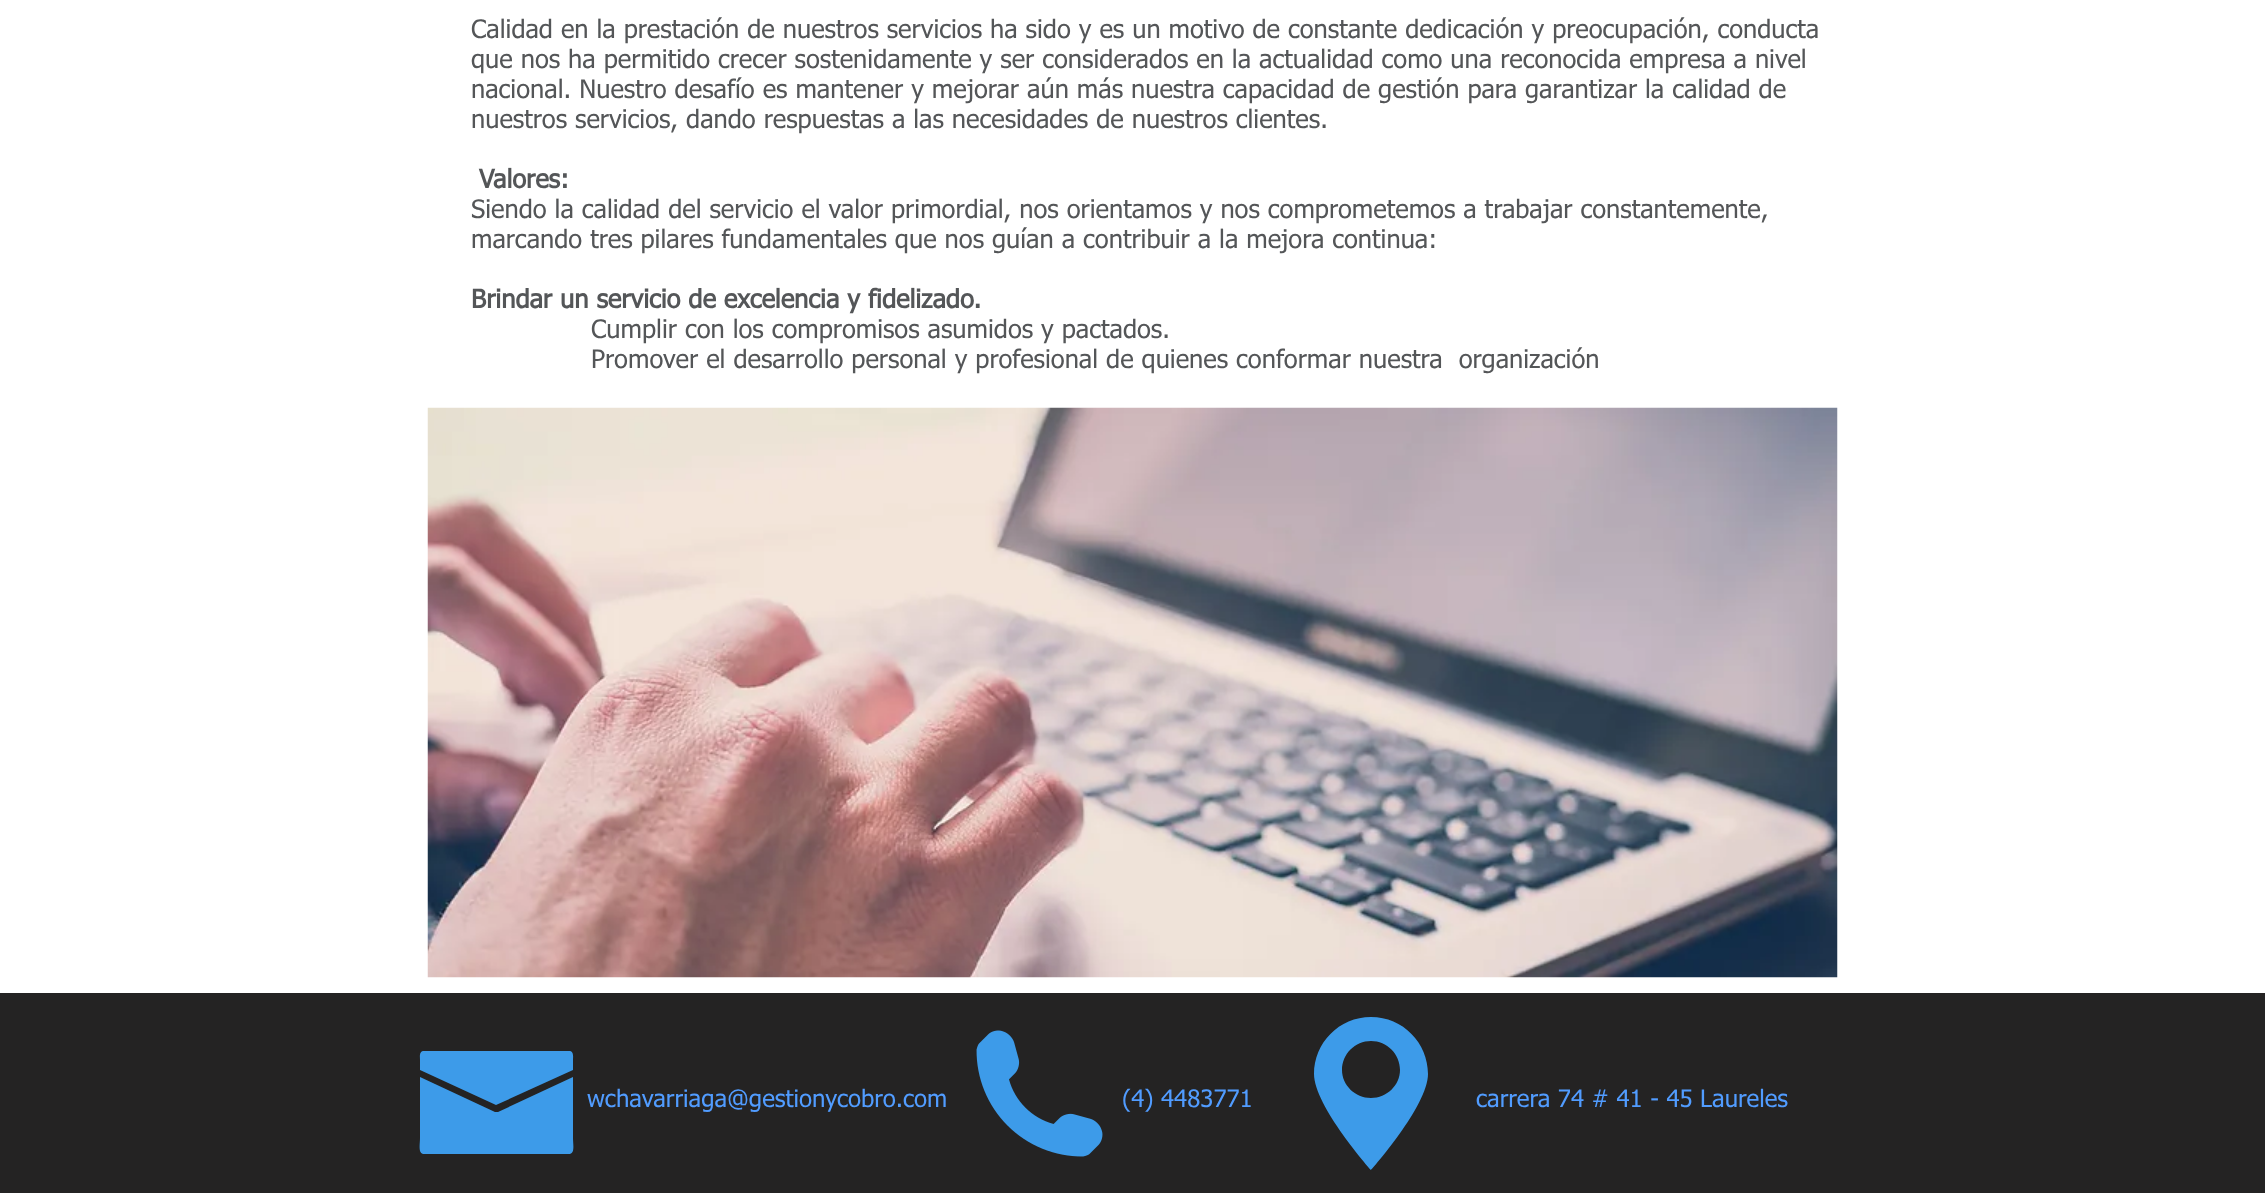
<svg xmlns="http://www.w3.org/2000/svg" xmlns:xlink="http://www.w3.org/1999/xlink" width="2265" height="1193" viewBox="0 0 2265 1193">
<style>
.cls-1{font:25.5px tahoma;fill:#545658}
.cls-2{font:bold 25.5px tahoma;fill:#545658}
.cls-3{font:24px tahoma;fill:#519cff}
</style>
<rect width="100%" height="100%" fill="#ffffff"/>
<image xlink:href="image0.png" x="427" y="407" width="1411" height="571"/>
<rect fill="#242323" x="0" y="993" width="2265" height="200"/>
<path fill="#3d9be9" d="M496 1105L573 1070V1060C573 1057 574 1052 570 1051H423C419 1052 420 1057 420 1060V1070Z"/>
<path fill="#3d9be9" d="M498 1112H495L420 1077V1138C420 1144 418 1153 423 1154H570C575 1153 573 1144 573 1138V1077Z"/>
<image xlink:href="image1.png" x="976" y="1030" width="127" height="127"/>
<path fill="#3d9be9" d="M1371 1017C1339 1017 1314 1043 1314 1074C1314 1106 1371 1170 1371 1170C1371 1170 1428 1106 1428 1074C1428 1043 1403 1017 1371 1017ZM1371 1098C1355 1098 1342 1085 1342 1070C1342 1054 1355 1041 1371 1041C1387 1041 1400 1054 1400 1070C1400 1085 1387 1098 1371 1098Z"/>
<text class="cls-1"><tspan x="471" y="38">Calidad en la prestación de nuestros servicios ha sido y es un motivo de constante dedicación y preocupación, conducta</tspan><tspan x="471" y="68">que nos ha permitido crecer sostenidamente y ser considerados en la actualidad como una reconocida empresa a nivel</tspan><tspan x="471" y="98">nacional. Nuestro desafío es mantener y mejorar aún más nuestra capacidad de gestión para garantizar la calidad de</tspan><tspan x="471" y="128">nuestros servicios, dando respuestas a las necesidades de nuestros clientes.</tspan></text>
<text class="cls-2" x="479" y="188">Valores:</text>
<text class="cls-1"><tspan x="471" y="218">Siendo la calidad del servicio el valor primordial, nos orientamos y nos comprometemos a trabajar constantemente,</tspan><tspan x="471" y="248">marcando tres pilares fundamentales que nos guían a contribuir a la mejora continua:</tspan></text>
<text class="cls-2" x="471" y="308">Brindar un servicio de excelencia y fidelizado.</text>
<text class="cls-1" xml:space="preserve"><tspan x="591" y="338">Cumplir con los compromisos asumidos y pactados.</tspan><tspan x="591" y="368">Promover el desarrollo personal y profesional de quienes conformar nuestra  organización</tspan></text>
<text class="cls-3" x="587" y="1107">wchavarriaga@gestionycobro.com</text>
<text class="cls-3" x="1122" y="1107">(4) 4483771</text>
<text class="cls-3" x="1476" y="1107">carrera 74 # 41 - 45 Laureles</text>
</svg>
